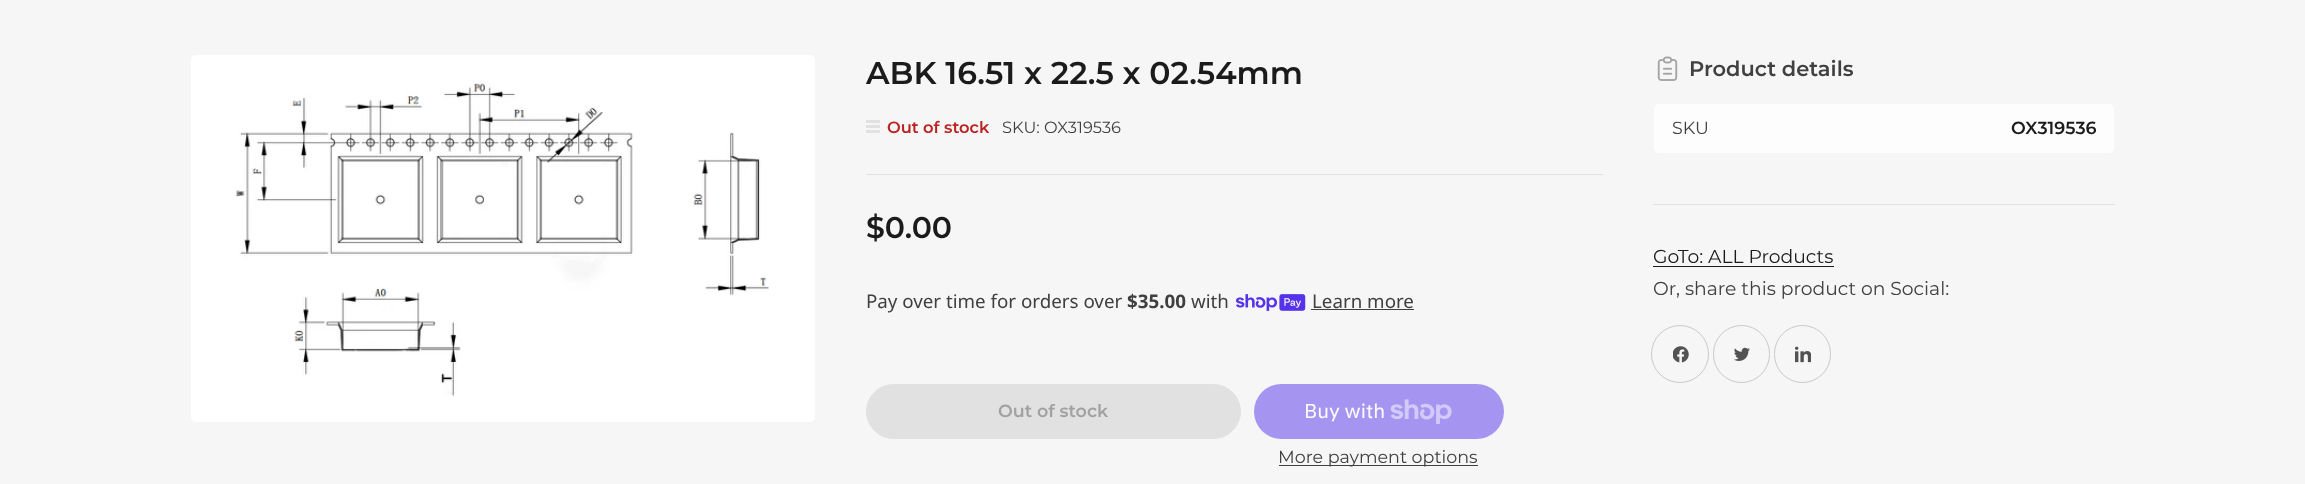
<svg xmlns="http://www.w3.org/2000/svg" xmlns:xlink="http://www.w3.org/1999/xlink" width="2305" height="484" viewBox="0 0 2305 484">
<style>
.cls-1{font:600 31.5px Montserrat;fill:#1b1b1b}
.cls-2{font:600 16.25px Montserrat;fill:#bc2222}
.cls-3{font:16.25px Montserrat;fill:#404040}
.cls-4{font:600 30px Montserrat;fill:#1b1b1b}
.cls-5{font:18.75px Noto Sans;fill:#404040}
.cls-6{font:bold 18.75px Noto Sans;fill:#404040}
.cls-7{font:600 17.5px Montserrat;fill:#a1a1a1}
.cls-8{font:20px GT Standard;fill:#fbfbfb}
.cls-9{font:17.5px Montserrat;fill:#404040}
.cls-10{font:600 21px Montserrat;fill:#404040}
.cls-11{font:600 17.5px Montserrat;fill:#1b1b1b}
.cls-12{font:18.75px Montserrat;fill:#1b1b1b}
.cls-13{font:18.75px Montserrat;fill:#404040}
</style>
<rect width="100%" height="100%" fill="#f6f6f6"/>
<rect fill="#ffffff" stroke="#f6f6f6" x="190.5" y="54.5" width="625" height="368" rx="5.5"/>
<image xlink:href="image0.png" x="235" y="82" width="534" height="315"/>
<rect fill="#e1e1e1" x="866" y="174" width="737" height="1"/>
<image xlink:href="image1.png" x="866" y="120" width="14" height="13"/>
<image xlink:href="image2.png" x="1236" y="294" width="70" height="17"/>
<rect fill="#404040" x="1311" y="309" width="103" height="1"/>
<rect fill="#e1e1e1" stroke="#e1e1e1" x="866.5" y="384.5" width="374" height="54" rx="27"/>
<rect fill="#a595f1" x="1254" y="384" width="250" height="55" rx="27.5"/>
<image xlink:href="image3.png" x="1390" y="399" width="62" height="25"/>
<rect fill="#404040" x="1279" y="465" width="199" height="1"/>
<image xlink:href="image4.png" x="1657" y="56" width="21" height="25"/>
<rect fill="#fdfdfd" stroke="#f6f6f6" x="1653.5" y="103.5" width="461" height="50" rx="5.5"/>
<rect fill="#e1e1e1" x="1653" y="204" width="462" height="1"/>
<rect fill="#1b1b1b" x="1653" y="266" width="181" height="1"/>
<circle fill="none" stroke="#c9c9c9" cx="1680" cy="354" r="28.5"/>
<image xlink:href="image5.png" x="1673" y="346" width="16" height="17"/>
<rect fill="none" stroke="#c9c9c9" x="1713.5" y="325.5" width="56" height="57" rx="28"/>
<image xlink:href="image6.png" x="1734" y="347" width="16" height="14"/>
<rect fill="none" stroke="#c9c9c9" x="1774.5" y="325.5" width="56" height="57" rx="28"/>
<image xlink:href="image7.png" x="1795" y="346" width="16" height="17"/>
<text class="cls-1" x="866" y="84">ABK 16.51 x 22.5 x 02.54mm</text>
<text class="cls-2" x="887" y="133">Out of stock</text>
<text class="cls-3" x="1002" y="133">SKU: OX319536</text>
<text class="cls-4" x="866" y="238">$0.00</text>
<text class="cls-5" x="866" y="308">Pay over time for orders over</text>
<text class="cls-6" x="1127" y="308">$35.00</text>
<text class="cls-5" x="1191" y="308">with</text>
<text class="cls-5" x="1312" y="308">Learn more</text>
<text class="cls-7" x="998" y="417">Out of stock</text>
<text class="cls-8" x="1304" y="418">Buy with</text>
<text class="cls-9" x="1278" y="463">More payment options</text>
<text class="cls-10" x="1689" y="76">Product details</text>
<text class="cls-9" x="1672" y="134">SKU</text>
<text class="cls-11" x="2011" y="134">OX319536</text>
<text class="cls-12" x="1653" y="263">GoTo: ALL Products</text>
<text class="cls-13" x="1653" y="295">Or, share this product on Social:</text>
</svg>
